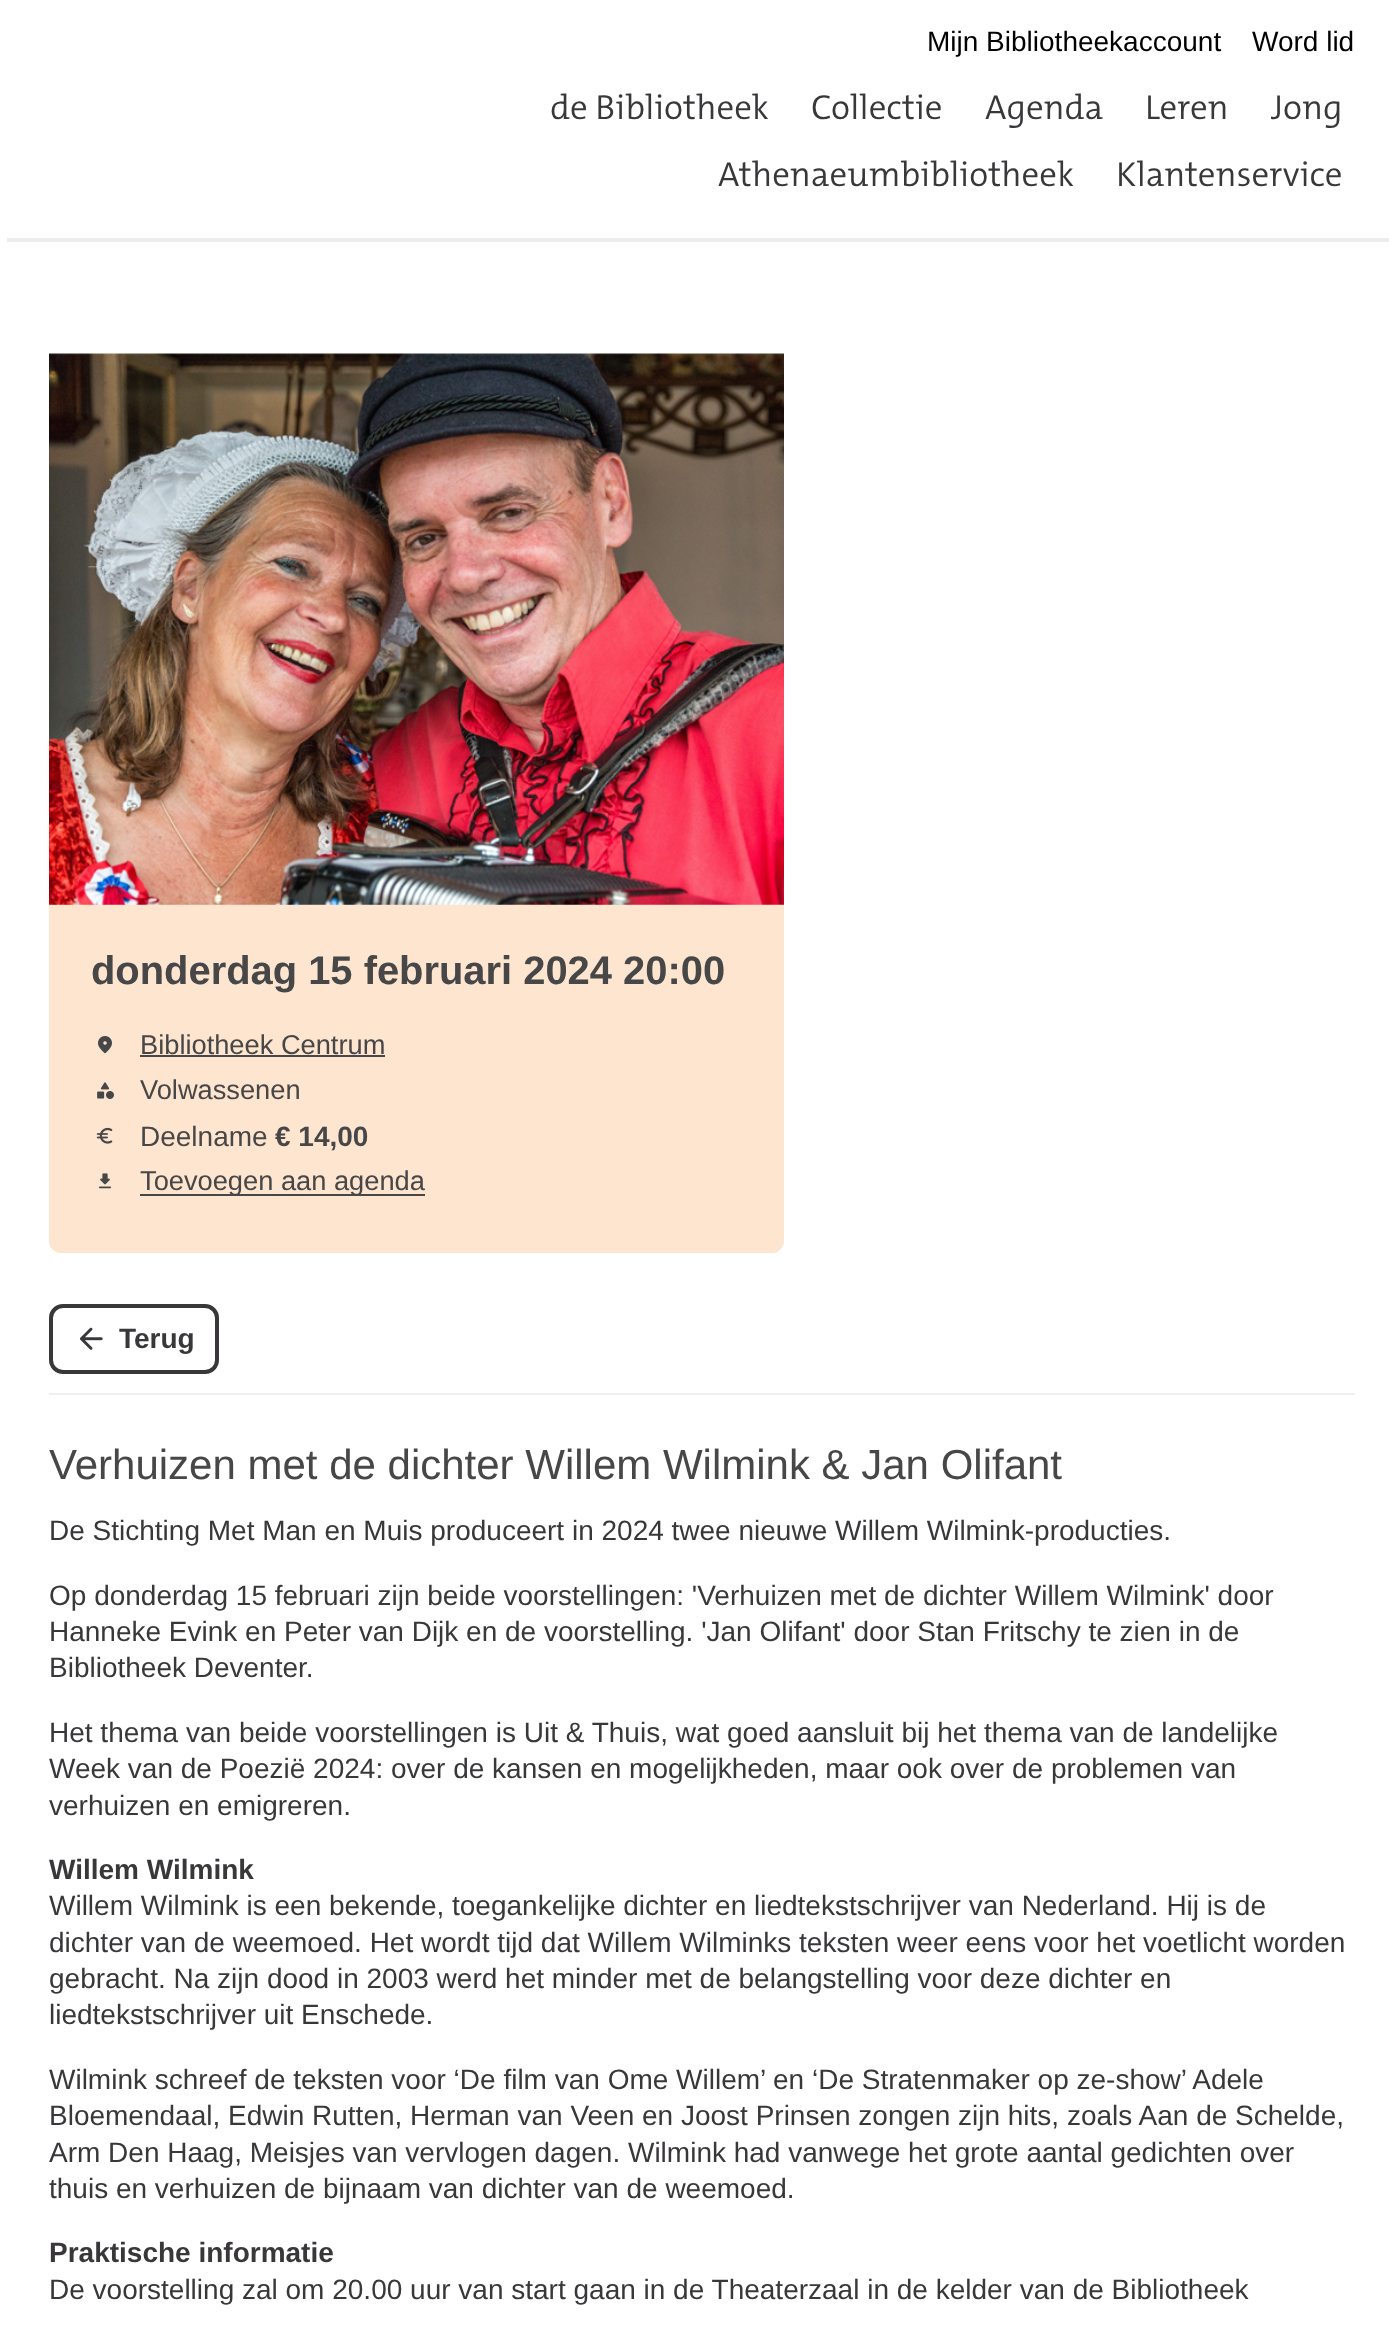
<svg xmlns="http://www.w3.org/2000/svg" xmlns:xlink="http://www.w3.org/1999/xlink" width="1389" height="2328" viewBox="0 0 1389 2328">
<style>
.cls-1{font:28px Liberation Sans;fill:#000000}
.cls-2{font:300 35px 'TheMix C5';fill:#39373a}
.cls-3{font:bold 39.9px Liberation Sans;fill:#474747}
.cls-4{font:27.25px Liberation Sans;fill:#474747}
.cls-5{font:28px Liberation Sans;fill:#474747}
.cls-6{font:bold 28px Liberation Sans;fill:#474747}
.cls-7{font:bold 28px Liberation Sans;fill:#39373a}
.cls-8{font:42px Liberation Sans;fill:#474747}
.cls-9{font:28px Liberation Sans;fill:#39373a}
</style>
<defs>
<clipPath id="clip1"><rect x="1271" y="84" width="71" height="46"/></clipPath>
</defs>
<rect width="100%" height="100%" fill="#ffffff"/>
<rect fill="#ededed" x="7" y="238" width="1382" height="4"/>
<rect fill="#fde5d0" x="49" y="354" width="735" height="899" rx="12"/>
<image xlink:href="image0.png" x="49" y="353" width="735" height="552"/>
<image xlink:href="image1.png" x="98" y="1036" width="14" height="18"/>
<rect fill="#474747" x="140" y="1055" width="245" height="2"/>
<image xlink:href="image2.png" x="97" y="1082" width="17" height="17"/>
<image xlink:href="image3.png" x="96" y="1127" width="17" height="17"/>
<image xlink:href="image4.png" x="98" y="1173" width="14" height="16"/>
<rect fill="#474747" x="140" y="1194" width="285" height="2"/>
<rect fill="none" stroke="#39373a" stroke-width="4" x="51" y="1306" width="166" height="66" rx="12"/>
<image xlink:href="image5.png" x="80" y="1327" width="23" height="23"/>
<rect fill="#efefef" x="49" y="1393" width="1306" height="2"/>
<text class="cls-1" x="927" y="51">Mijn Bibliotheekaccount</text>
<text class="cls-1" x="1252" y="51">Word lid</text>
<text class="cls-2" x="550" y="119">de Bibliotheek</text>
<text class="cls-2" x="811" y="119">Collectie</text>
<text class="cls-2" x="985" y="119">Agenda</text>
<text class="cls-2" x="1145" y="119">Leren</text>
<g clip-path="url(#clip1)">
<text class="cls-2" x="1271" y="119">Jong</text>
</g>
<text class="cls-2" x="718" y="186">Athenaeumbibliotheek</text>
<text class="cls-2" x="1116" y="186">Klantenservice</text>
<text class="cls-3" x="91" y="984">donderdag 15 februari 2024 20:00</text>
<text class="cls-4"><tspan x="140" y="1054">Bibliotheek Centrum</tspan><tspan x="140" y="1099">Volwassenen</tspan></text>
<text class="cls-5" x="140" y="1146">Deelname</text>
<text class="cls-6" x="275" y="1146">€ 14,00</text>
<text class="cls-4" x="140" y="1190">Toevoegen aan agenda</text>
<text class="cls-7" x="119" y="1348">Terug</text>
<text class="cls-8" x="49" y="1479">Verhuizen met de dichter Willem Wilmink &amp; Jan Olifant</text>
<text class="cls-9" x="49" y="1540">De Stichting Met Man en Muis produceert in 2024 twee nieuwe Willem Wilmink-producties.</text>
<text class="cls-9"><tspan x="49" y="1605">Op donderdag 15 februari zijn beide voorstellingen: 'Verhuizen met de dichter Willem Wilmink' door</tspan><tspan x="49" y="1641">Hanneke Evink en Peter van Dijk en de voorstelling. 'Jan Olifant' door Stan Fritschy te zien in de</tspan><tspan x="49" y="1677">Bibliotheek Deventer.</tspan></text>
<text class="cls-9"><tspan x="49" y="1742">Het thema van beide voorstellingen is Uit &amp; Thuis, wat goed aansluit bij het thema van de landelijke</tspan><tspan x="49" y="1778">Week van de Poezië 2024: over de kansen en mogelijkheden, maar ook over de problemen van</tspan><tspan x="49" y="1815">verhuizen en emigreren.</tspan></text>
<text class="cls-7" x="49" y="1879">Willem Wilmink</text>
<text class="cls-9"><tspan x="49" y="1915">Willem Wilmink is een bekende, toegankelijke dichter en liedtekstschrijver van Nederland. Hij is de</tspan><tspan x="49" y="1952">dichter van de weemoed. Het wordt tijd dat Willem Wilminks teksten weer eens voor het voetlicht worden</tspan><tspan x="49" y="1988">gebracht. Na zijn dood in 2003 werd het minder met de belangstelling voor deze dichter en</tspan><tspan x="49" y="2024">liedtekstschrijver uit Enschede.</tspan></text>
<text class="cls-9"><tspan x="49" y="2089">Wilmink schreef de teksten voor ‘De film van Ome Willem’ en ‘De Stratenmaker op ze-show’ Adele</tspan><tspan x="49" y="2125">Bloemendaal, Edwin Rutten, Herman van Veen en Joost Prinsen zongen zijn hits, zoals Aan de Schelde,</tspan><tspan x="49" y="2162">Arm Den Haag, Meisjes van vervlogen dagen. Wilmink had vanwege het grote aantal gedichten over</tspan><tspan x="49" y="2198">thuis en verhuizen de bijnaam van dichter van de weemoed.</tspan></text>
<text class="cls-7" x="49" y="2262">Praktische informatie</text>
<text class="cls-9" x="49" y="2299">De voorstelling zal om 20.00 uur van start gaan in de Theaterzaal in de kelder van de Bibliotheek</text>
</svg>
